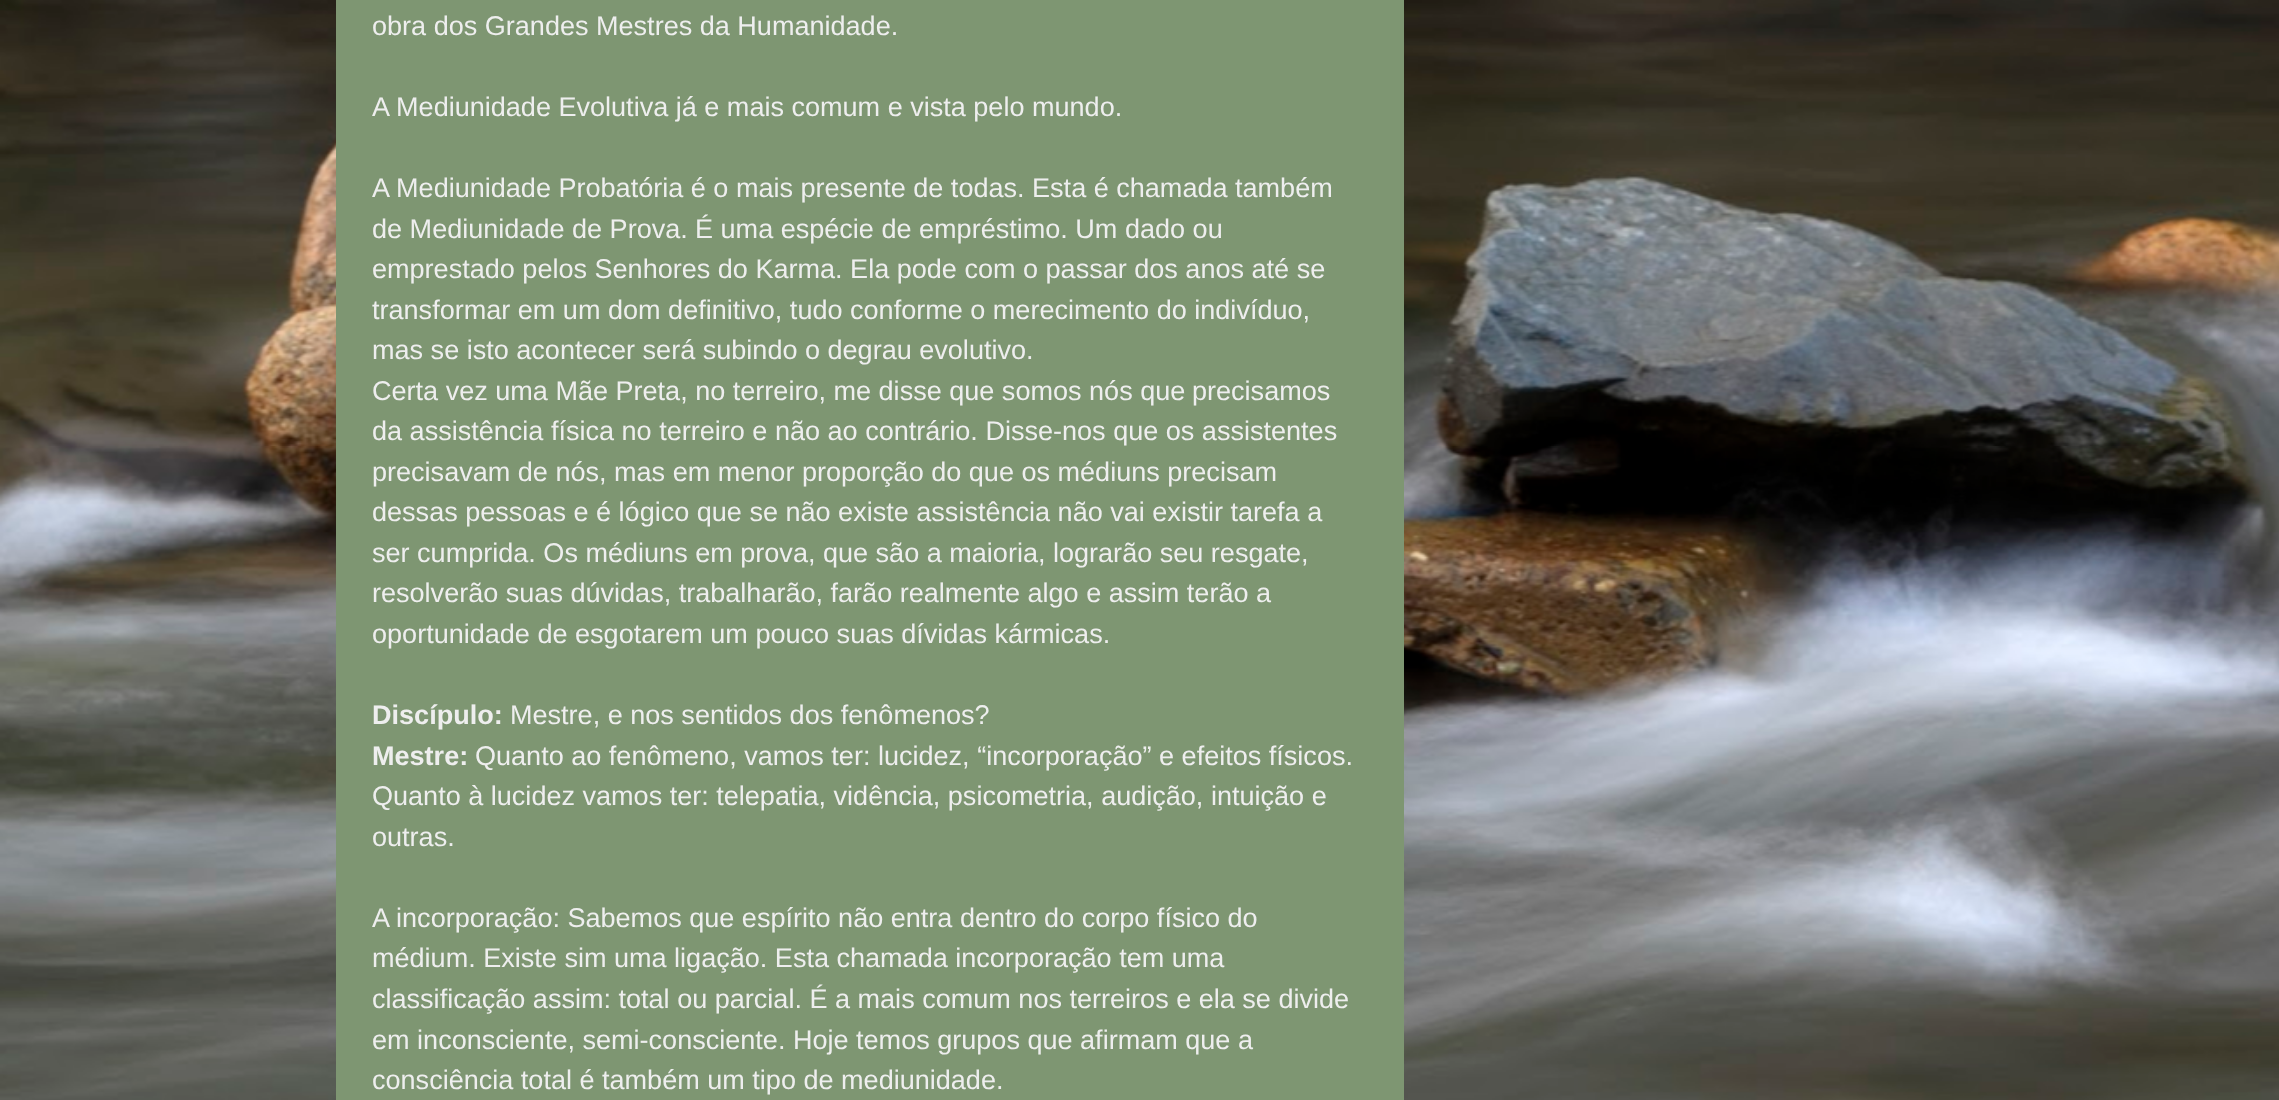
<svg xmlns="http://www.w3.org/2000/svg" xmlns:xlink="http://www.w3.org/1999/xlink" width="2279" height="1100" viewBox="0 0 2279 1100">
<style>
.cls-1{font:27.05px Liberation Sans;fill:#eeeeee}
.cls-2{font:bold 27.05px Liberation Sans;fill:#eeeeee}
</style>
<rect width="100%" height="100%" fill="#ffffff"/>
<image xlink:href="image0.png" x="0" y="0" width="2279" height="1100"/>
<rect fill="#7e9672" x="336" y="0" width="1068" height="1100"/>
<text class="cls-1" x="372" y="35">obra dos Grandes Mestres da Humanidade.</text>
<text class="cls-1" x="372" y="116">A Mediunidade Evolutiva já e mais comum e vista pelo mundo.</text>
<text class="cls-1"><tspan x="372" y="197">A Mediunidade Probatória é o mais presente de todas. Esta é chamada também</tspan><tspan x="372" y="238">de Mediunidade de Prova.</tspan></text>
<text class="cls-1" x="695" y="238">É uma espécie de empréstimo. Um dado ou</text>
<text class="cls-1"><tspan x="372" y="278">emprestado pelos Senhores do Karma. Ela pode com o passar dos anos até se</tspan><tspan x="372" y="319">transformar em um dom definitivo, tudo conforme o merecimento do indivíduo,</tspan><tspan x="372" y="359">mas se isto acontecer será subindo o degrau evolutivo.</tspan><tspan x="372" y="400">Certa vez uma Mãe Preta, no terreiro, me disse que somos nós que</tspan></text>
<text class="cls-1" x="1192" y="400">precisamos</text>
<text class="cls-1"><tspan x="372" y="440">da assistência física no terreiro e não ao contrário. Disse-nos que os assistentes</tspan><tspan x="372" y="481">precisavam de nós, mas em menor proporção do que os médiuns precisam</tspan><tspan x="372" y="521">dessas pessoas e é lógico que se não existe assistência não vai existir tarefa a</tspan><tspan x="372" y="562">ser cumprida. Os médiuns em prova, que são a maioria, lograrão seu resgate,</tspan><tspan x="372" y="602">resolverão suas dúvidas, trabalharão, farão realmente algo e assim terão a</tspan><tspan x="372" y="643">oportunidade de esgotarem um pouco suas dívidas kármicas.</tspan></text>
<text class="cls-2" x="372" y="724">Discípulo:</text>
<text class="cls-1" x="510" y="724">Mestre, e nos sentidos dos fenômenos?</text>
<text class="cls-2" x="372" y="765">Mestre:</text>
<text class="cls-1" x="475" y="765">Quanto ao fenômeno, vamos ter: lucidez, “incorporação” e efeitos físicos.</text>
<text class="cls-1"><tspan x="372" y="805">Quanto à lucidez vamos ter: telepatia, vidência, psicometria, audição, intuição e</tspan><tspan x="372" y="846">outras.</tspan></text>
<text class="cls-1"><tspan x="372" y="927">A incorporação: Sabemos que espírito não entra dentro do corpo físico do</tspan><tspan x="372" y="967">médium. Existe sim uma ligação. Esta chamada incorporação tem uma</tspan><tspan x="372" y="1008">classificação assim: total ou parcial. É a mais comum nos terreiros e ela se divide</tspan><tspan x="372" y="1049">em inconsciente, semi-consciente. Hoje temos grupos que afirmam que a</tspan><tspan x="372" y="1089">consciência total é também um tipo de mediunidade.</tspan></text>
</svg>
